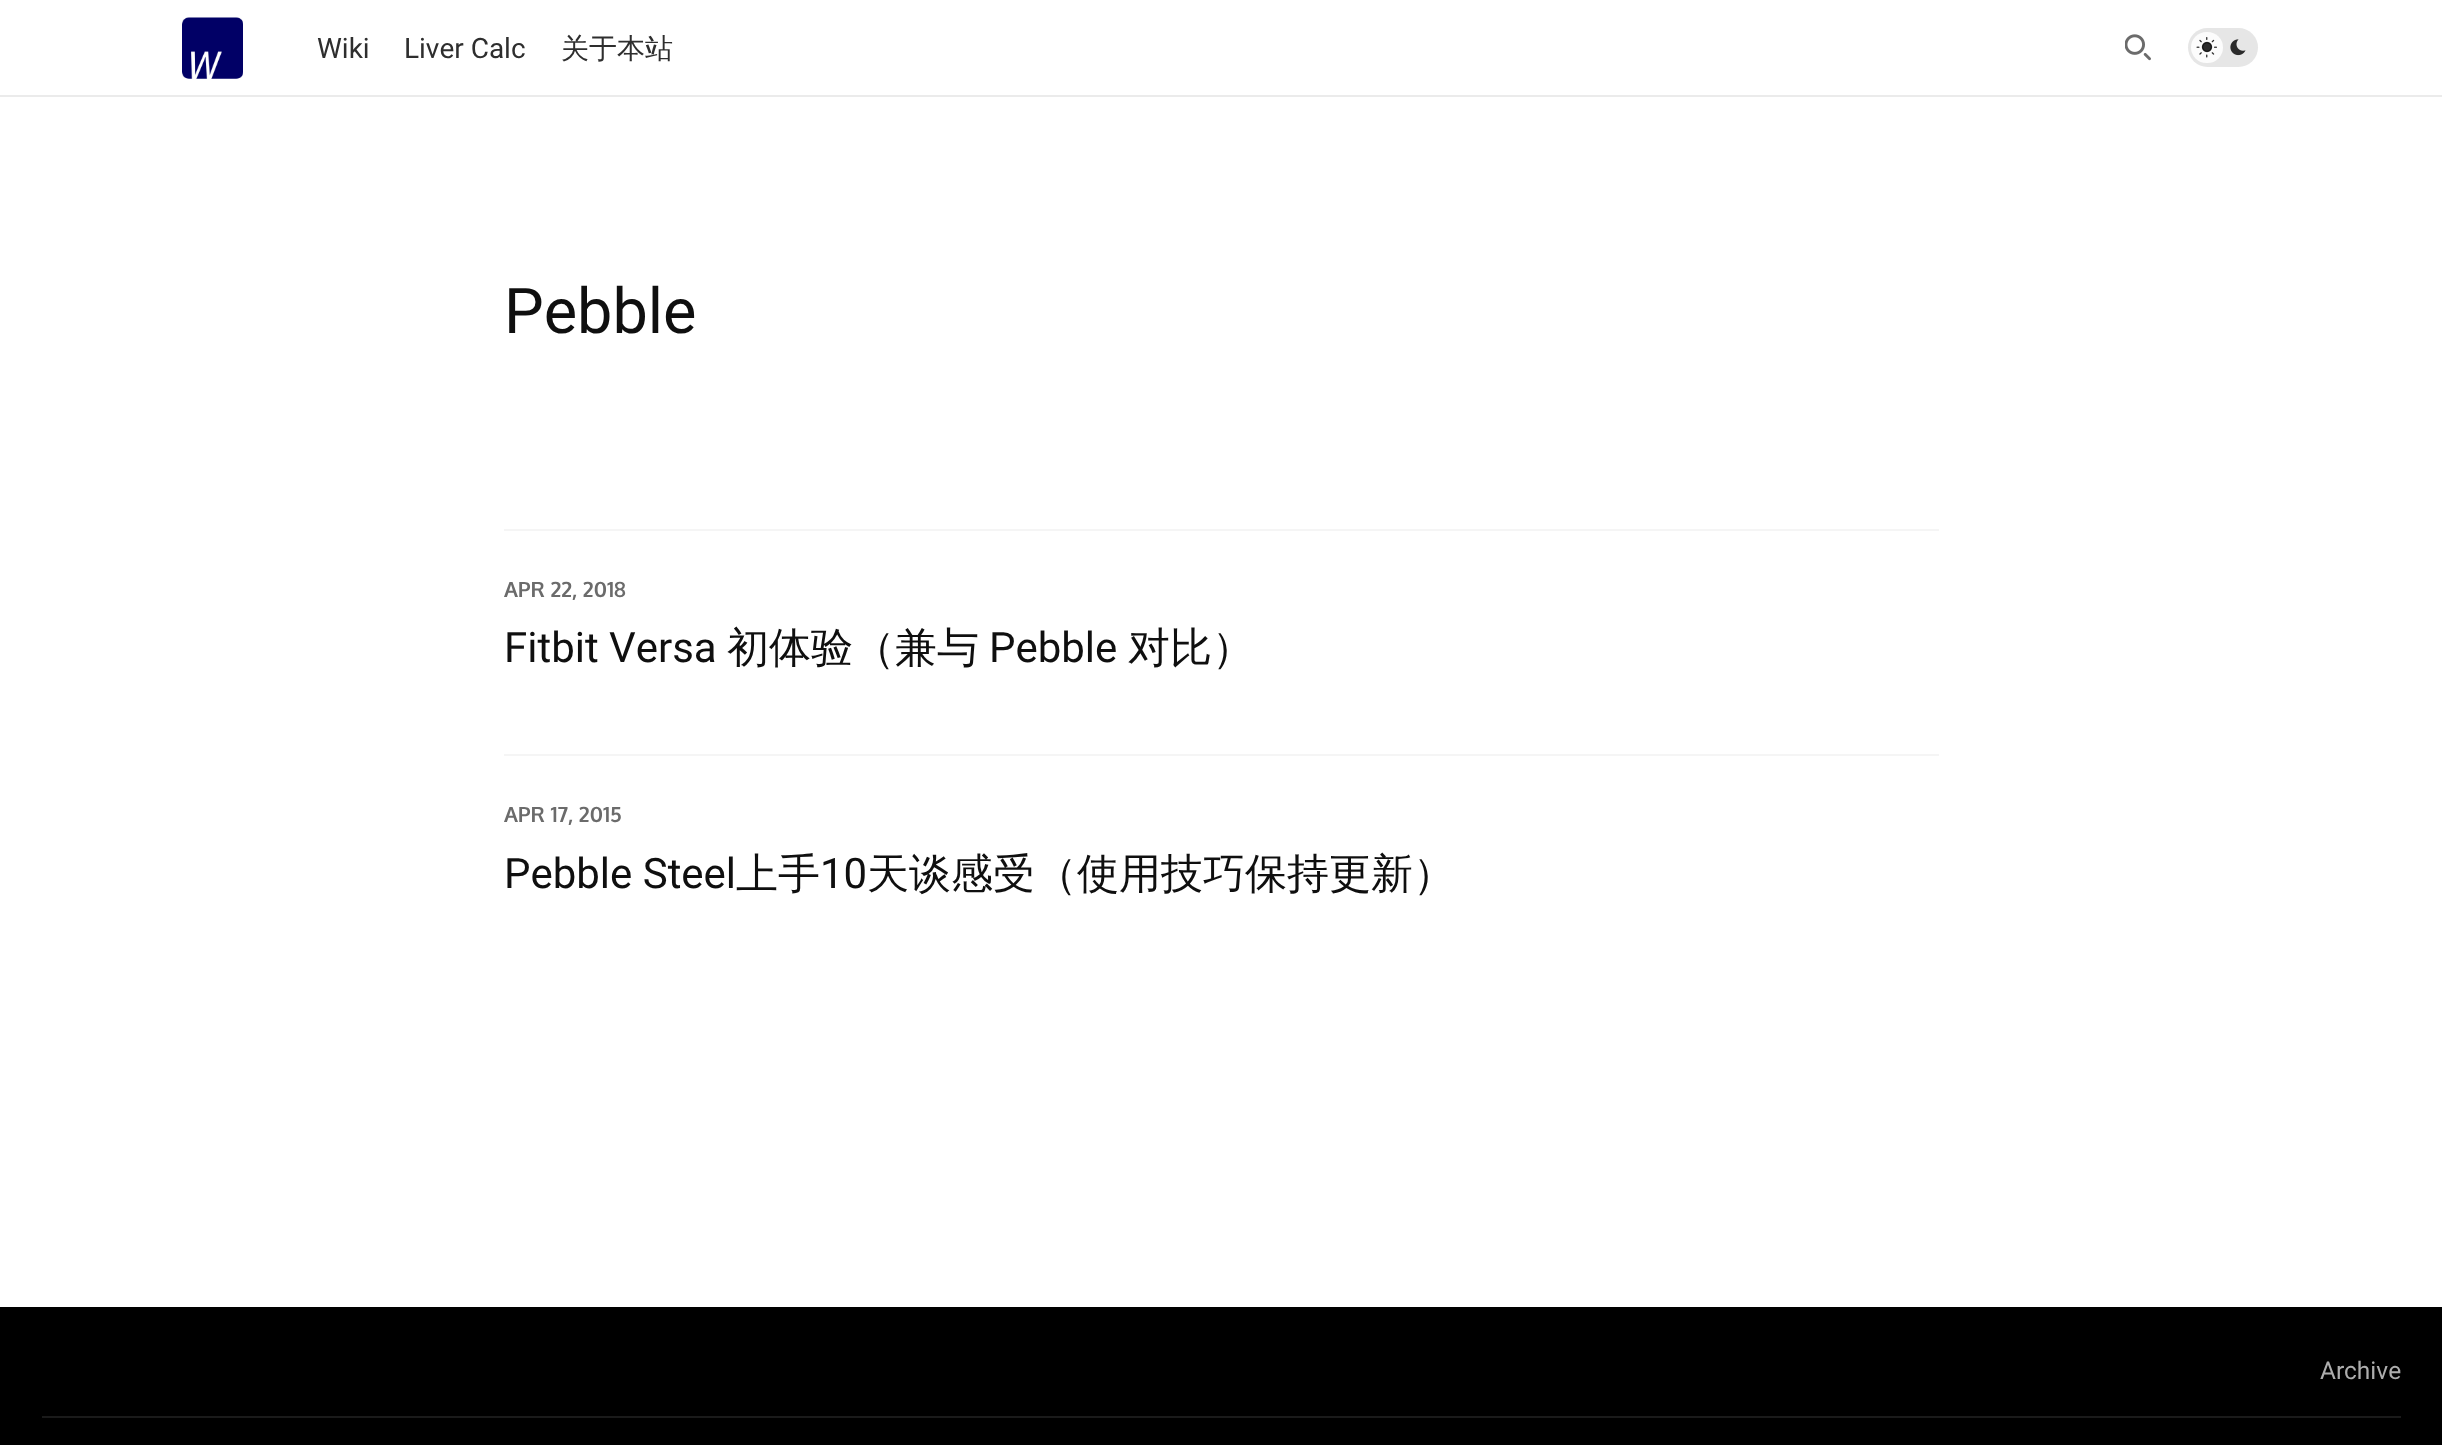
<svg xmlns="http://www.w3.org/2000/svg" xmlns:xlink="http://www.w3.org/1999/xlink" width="2442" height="1445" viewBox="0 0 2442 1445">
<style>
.cls-1{font:28px Roboto;fill:#2e2e2e}
.cls-2{font:500 28px WenQuanYi Zen Hei;fill:#2e2e2e}
.cls-3{font:63px Roboto;fill:#0f0f0f}
.cls-4{font:bold 21px Oxygen;fill:#6b6b6b}
.cls-5{font:42px Roboto;fill:#0f0f0f}
.cls-6{font:500 42px WenQuanYi Zen Hei;fill:#0f0f0f}
.cls-7{font:24.5px Roboto;fill:#adadad}
</style>
<rect width="100%" height="100%" fill="#ffffff"/>
<rect fill="#ebebeb" x="0" y="95" width="2442" height="2"/>
<image xlink:href="image0.png" x="182" y="17" width="61" height="62"/>
<image xlink:href="image1.png" x="2125" y="34" width="26" height="27"/>
<rect fill="#e6e6e6" x="2188" y="28" width="70" height="39" rx="19.5"/>
<rect fill="#fcfcfc" x="2191" y="32" width="32" height="31" rx="15.5"/>
<image xlink:href="image2.png" x="2196" y="37" width="21" height="21"/>
<image xlink:href="image3.png" x="2230" y="39" width="16" height="17"/>
<rect fill="#f5f5f5" x="504" y="529" width="1435" height="2"/>
<rect fill="#f5f5f5" x="504" y="754" width="1435" height="2"/>
<rect fill="#000000" x="0" y="1307" width="2442" height="138"/>
<rect fill="#1a1a1a" x="42" y="1416" width="2359" height="2"/>
<text class="cls-1" x="317" y="58">Wiki</text>
<text class="cls-1" x="404" y="58">Liver Calc</text>
<text class="cls-2" x="561" y="58">关于本站</text>
<text class="cls-3" x="504" y="333">Pebble</text>
<text class="cls-4" x="504" y="597">APR 22, 2018</text>
<text class="cls-5" x="504" y="662">Fitbit Versa</text>
<text class="cls-6" x="727" y="662">初体验（兼与</text>
<text class="cls-5" x="989" y="662">Pebble</text>
<text class="cls-6" x="1128" y="662">对比）</text>
<text class="cls-4" x="504" y="822">APR 17, 2015</text>
<text class="cls-5" x="504" y="888">Pebble Steel</text>
<text class="cls-6" x="736" y="888">上手</text>
<text class="cls-5" x="820" y="888">10</text>
<text class="cls-6" x="867" y="888">天谈感受（使用技巧保持更新）</text>
<text class="cls-7" x="2320" y="1379">Archive</text>
</svg>
